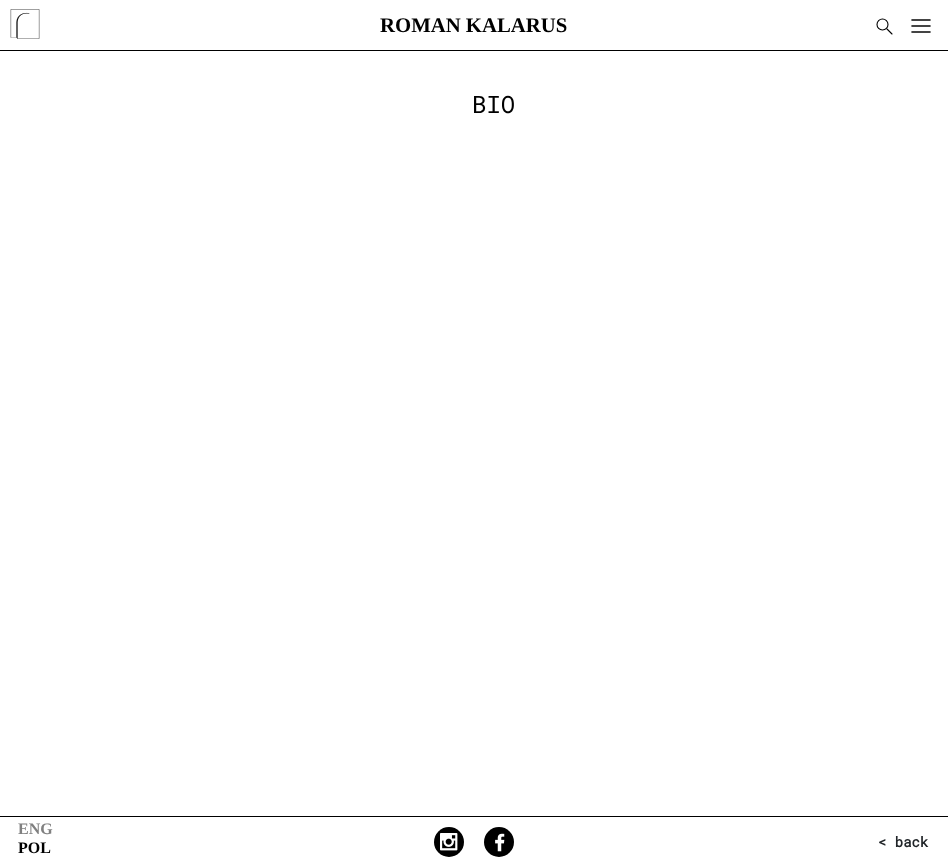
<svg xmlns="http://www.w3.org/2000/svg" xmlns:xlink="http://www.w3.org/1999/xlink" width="948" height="867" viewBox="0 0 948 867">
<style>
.cls-1{font:bold 20.75px Liberation Serif;fill:#000000}
.cls-2{font:24px Roboto Mono;fill:#000000}
.cls-3{font:bold 16px Liberation Serif;fill:#808080}
.cls-4{font:bold 16px Liberation Serif;fill:#000000}
.cls-5{font:bold 14px Roboto Mono;fill:#212529}
</style>
<rect width="100%" height="100%" fill="#ffffff"/>
<image xlink:href="image0.png" x="10" y="9" width="30" height="30"/>
<image xlink:href="image1.png" x="911" y="19" width="20" height="14"/>
<circle fill="none" stroke="#000000" stroke-width="1.1" cx="882.5" cy="24.5" r="5.5"/>
<path fill="none" stroke="#000000" stroke-width="1.1" stroke-linecap="round" stroke-linejoin="round" d="M887 29L892 34"/>
<rect fill="#000000" x="0" y="50" width="948" height="1"/>
<rect fill="#000000" x="0" y="816" width="948" height="1"/>
<circle fill="#000000" cx="449" cy="842" r="15"/>
<image xlink:href="image2.png" x="440" y="833" width="18" height="18"/>
<circle fill="#000000" cx="499" cy="842" r="15"/>
<image xlink:href="image3.png" x="495" y="833" width="10" height="19"/>
<text class="cls-1" x="380" y="32">ROMAN KALARUS</text>
<text class="cls-2" x="472" y="113">BIO</text>
<text class="cls-3" x="18" y="834">ENG</text>
<text class="cls-4" x="18" y="853">POL</text>
<text class="cls-5" x="878" y="847">&lt; back</text>
</svg>
